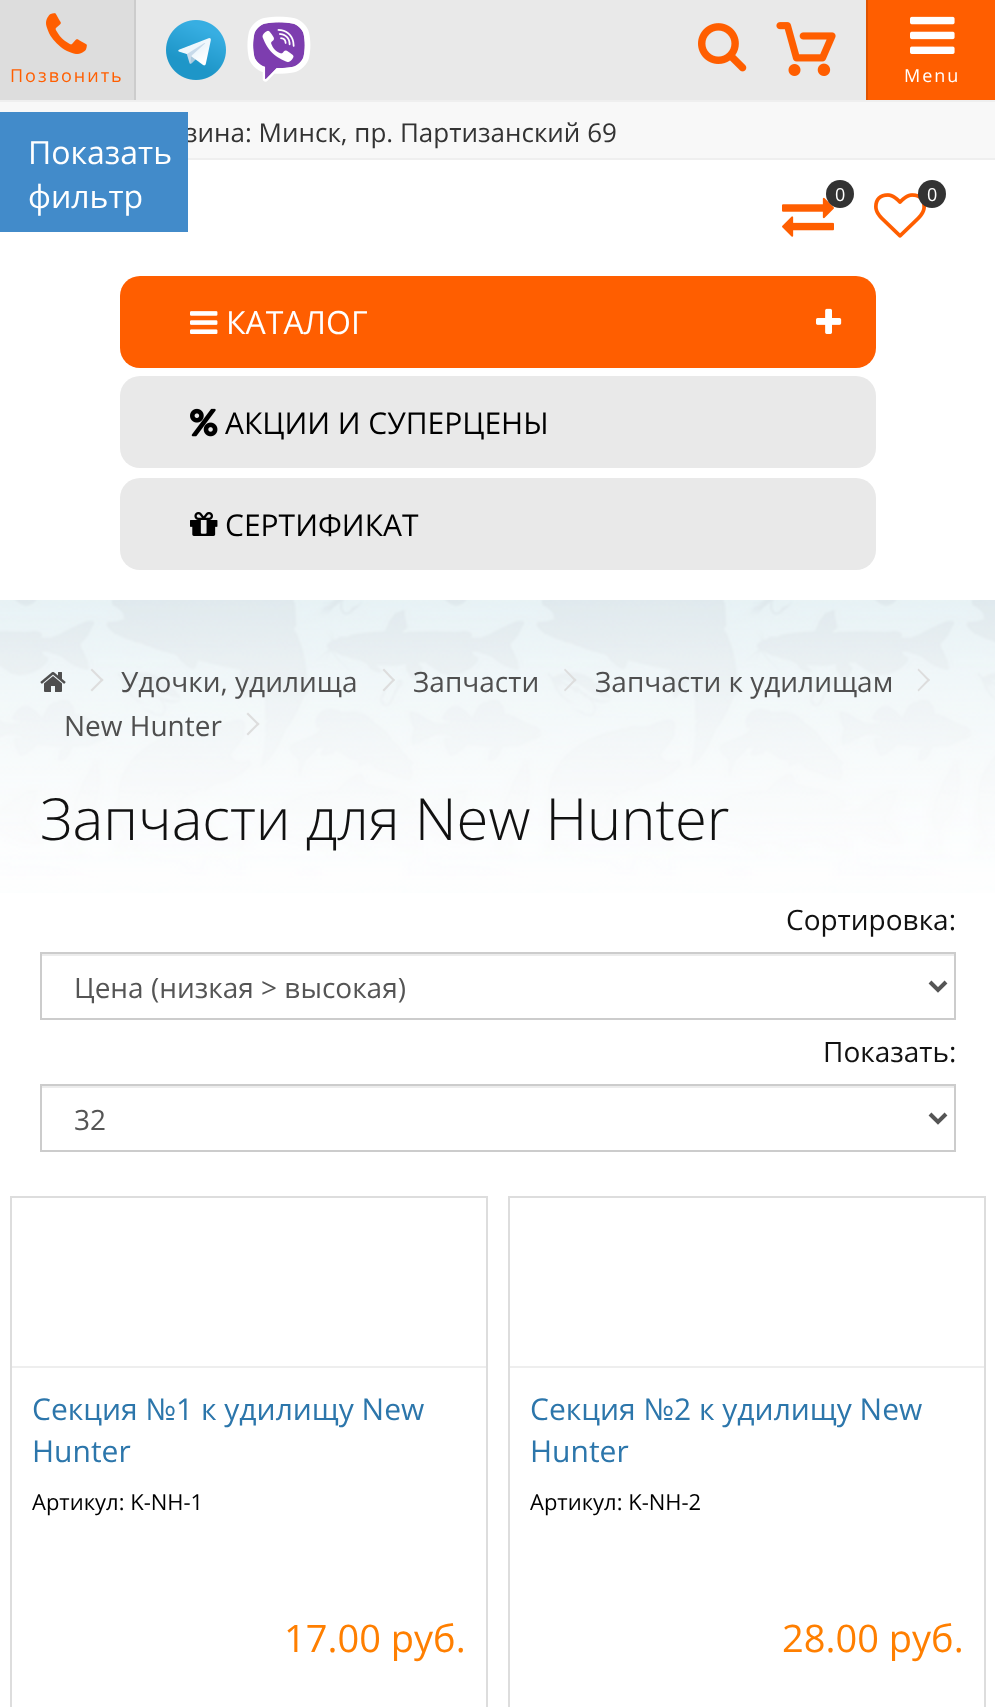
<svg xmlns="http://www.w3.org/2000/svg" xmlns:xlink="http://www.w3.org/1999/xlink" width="995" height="1707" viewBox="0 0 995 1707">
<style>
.cls-1{font:18px Open Sans;letter-spacing:2px;fill:#ff5e00}
.cls-2{font:18px Open Sans;letter-spacing:2px;fill:#ffffff}
.cls-3{font:26px Open Sans;fill:#333333}
.cls-4{font:18px Open Sans;fill:#ffffff}
.cls-5{font:32px Open Sans;fill:#ffffff}
.cls-6{font:30px Open Sans;fill:#000000}
.cls-7{font:28px Open Sans;fill:#4f4f4f}
.cls-8{font:300 58px Open Sans;fill:#111111}
.cls-9{font:28px Open Sans;fill:#111111}
.cls-10{font:28px Open Sans;fill:#555555}
.cls-11{font:30px Open Sans;fill:#2c76ab}
.cls-12{font:22px Open Sans;fill:#000000}
.cls-13{font:38px Open Sans;fill:#ff7f00}
</style>
<rect width="100%" height="100%" fill="#ffffff"/>
<image xlink:href="image0.png" x="0" y="600" width="995" height="293"/>
<rect fill="#e9e9e9" x="136" y="0" width="730" height="100"/>
<rect fill="#dddddd" x="0" y="0" width="134" height="100"/>
<rect fill="#cccccc" x="134" y="0" width="2" height="100"/>
<image xlink:href="image1.png" x="46" y="13" width="41" height="41"/>
<image xlink:href="image2.png" x="166" y="20" width="60" height="60"/>
<image xlink:href="image3.png" x="247" y="16" width="64" height="66"/>
<image xlink:href="image4.png" x="698" y="23" width="49" height="49"/>
<image xlink:href="image5.png" x="776" y="22" width="60" height="54"/>
<rect fill="#ff5e00" x="868" y="0" width="127" height="100"/>
<rect fill="#df5301" x="866" y="0" width="2" height="100"/>
<image xlink:href="image6.png" x="910" y="16" width="45" height="38"/>
<rect fill="#f8f8f8" x="0" y="102" width="995" height="56"/>
<rect fill="#efefef" x="0" y="100" width="995" height="2"/>
<rect fill="#efefef" x="188" y="158" width="807" height="2"/>
<image xlink:href="image7.png" x="782" y="197" width="52" height="40"/>
<circle fill="#333333" cx="840" cy="194" r="14"/>
<image xlink:href="image8.png" x="874" y="193" width="52" height="45"/>
<circle fill="#333333" cx="932" cy="194" r="14"/>
<rect fill="#ff5e00" x="120" y="276" width="756" height="92" rx="20"/>
<image xlink:href="image9.png" x="190" y="311" width="28" height="23"/>
<image xlink:href="image10.png" x="816" y="308" width="26" height="26"/>
<rect fill="#e9e9e9" x="120" y="376" width="756" height="92" rx="20"/>
<image xlink:href="image11.png" x="190" y="408" width="28" height="29"/>
<rect fill="#e9e9e9" x="120" y="478" width="756" height="92" rx="20"/>
<image xlink:href="image12.png" x="190" y="512" width="28" height="24"/>
<image xlink:href="image13.png" x="40" y="672" width="26" height="20"/>
<path fill="#dddddd" d="M90.5 670L92 668.5L103.5 680L102 681.5Z"/>
<path fill="#dddddd" d="M90.5 690L102 678.5L103.5 680L92 691.5Z"/>
<path fill="#dddddd" d="M382.5 670L384 668.5L395 680L393.5 681.5Z"/>
<path fill="#dddddd" d="M382.5 690L393.5 678.5L395 680L384 691.5Z"/>
<path fill="#dddddd" d="M564 670L565 668.5L576.5 680L575 681.5Z"/>
<path fill="#dddddd" d="M564 690L575 678.5L576.5 680L565 691.5Z"/>
<path fill="#dddddd" d="M917.5 670L918.5 668.5L930 680L928.5 681.5Z"/>
<path fill="#dddddd" d="M917.5 690L928.5 678.5L930 680L918.5 691.5Z"/>
<path fill="#dddddd" d="M246.5 714L248 712.5L259.5 724L258 725.5Z"/>
<path fill="#dddddd" d="M246.5 734L258 722.5L259.5 724L248 735.5Z"/>
<rect fill="#ececec" x="42" y="954" width="912" height="2"/>
<rect fill="none" stroke="#cccccc" stroke-width="2" x="41" y="953" width="914" height="66"/>
<path fill="none" stroke="#555555" stroke-width="4" d="M930 982L938 990L946 982"/>
<rect fill="#ececec" x="42" y="1086" width="912" height="2"/>
<rect fill="none" stroke="#cccccc" stroke-width="2" x="41" y="1085" width="914" height="66"/>
<path fill="none" stroke="#555555" stroke-width="4" d="M930 1114L938 1122L946 1114"/>
<rect fill="none" stroke="#dddddd" stroke-width="2" x="11" y="1197" width="476" height="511"/>
<rect fill="#eeeeee" x="12" y="1366" width="474" height="2"/>
<rect fill="none" stroke="#dddddd" stroke-width="2" x="509" y="1197" width="476" height="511"/>
<rect fill="#eeeeee" x="510" y="1366" width="474" height="2"/>
<text class="cls-1" x="10" y="82">Позвонить</text>
<text class="cls-2" x="904" y="82">Menu</text>
<text class="cls-3" x="185" y="142">зина: Минск, пр. Партизанский 69</text>
<text class="cls-4" x="835" y="201">0</text>
<text class="cls-4" x="927" y="201">0</text>
<text class="cls-5" x="226" y="334">КАТАЛОГ</text>
<text class="cls-6" x="225" y="434">АКЦИИ И СУПЕРЦЕНЫ</text>
<text class="cls-6" x="225" y="536">СЕРТИФИКАТ</text>
<text class="cls-7" x="121" y="692">Удочки, удилища</text>
<text class="cls-7" x="413" y="692">Запчасти</text>
<text class="cls-7" x="595" y="692">Запчасти к удилищам</text>
<text class="cls-7" x="64" y="736">New Hunter</text>
<text class="cls-8" x="40" y="840">Запчасти для New Hunter</text>
<text class="cls-9" x="786" y="930">Сортировка:</text>
<text class="cls-10" x="74" y="998">Цена (низкая &gt; высокая)</text>
<text class="cls-9" x="823" y="1062">Показать:</text>
<text class="cls-10" x="74" y="1130">32</text>
<text class="cls-11"><tspan x="32" y="1420">Секция №1 к удилищу New</tspan><tspan x="32" y="1462">Hunter</tspan></text>
<text class="cls-12" x="32" y="1510">Артикул: K-NH-1</text>
<text class="cls-13" x="284" y="1652">17.00 руб.</text>
<text class="cls-11"><tspan x="530" y="1420">Секция №2 к удилищу New</tspan><tspan x="530" y="1462">Hunter</tspan></text>
<text class="cls-12" x="530" y="1510">Артикул: K-NH-2</text>
<text class="cls-13" x="782" y="1652">28.00 руб.</text>
<rect fill="#428bca" x="0" y="112" width="188" height="120"/>
<text class="cls-5"><tspan x="28" y="164">Показать</tspan><tspan x="28" y="208">фильтр</tspan></text>
</svg>
